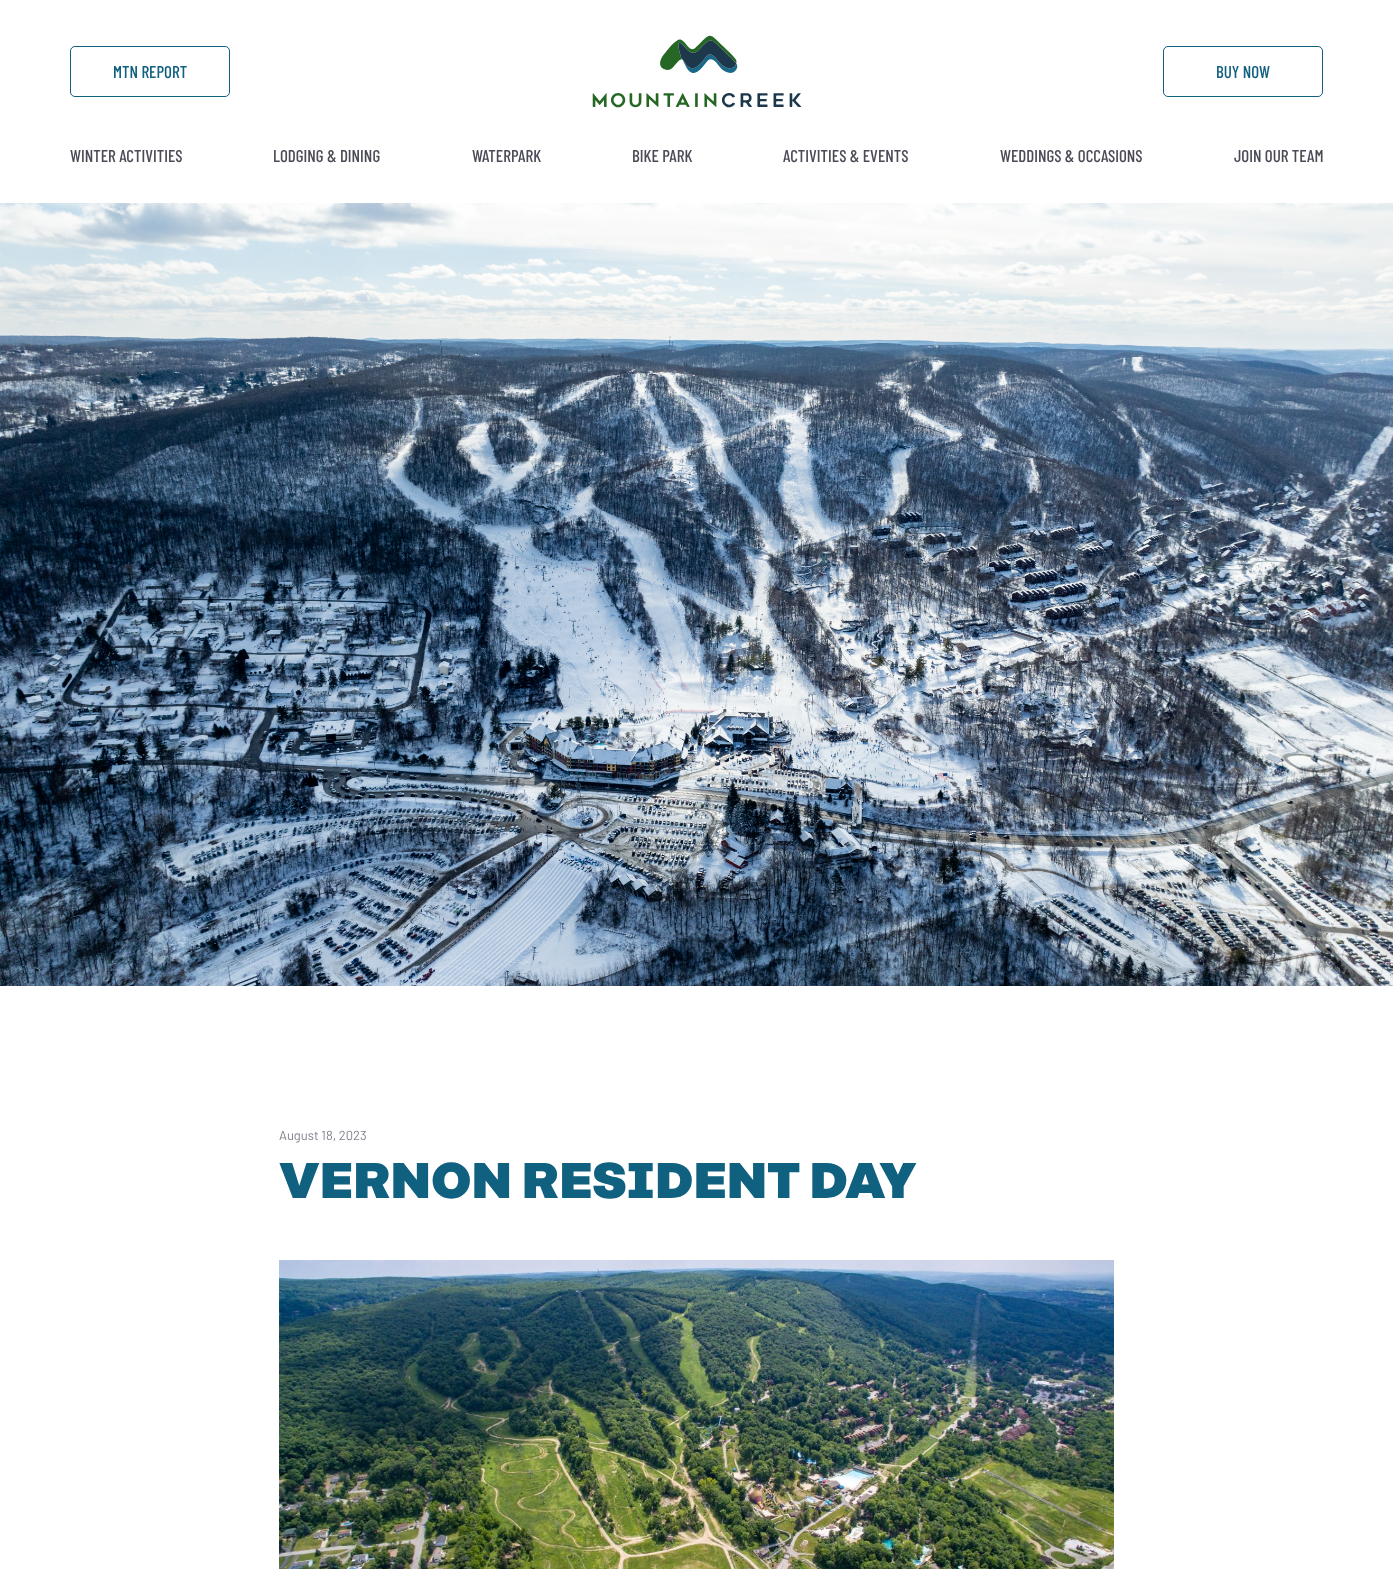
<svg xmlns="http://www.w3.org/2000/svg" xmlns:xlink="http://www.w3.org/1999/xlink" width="1393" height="1569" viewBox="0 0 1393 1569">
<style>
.cls-1{font:500 17px Barlow Condensed;fill:#10607f}
.cls-2{font:500 17px Barlow Condensed;fill:#4a4b55}
.cls-3{font:13px Barlow;fill:#81828e}
.cls-4{font:800 50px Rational;fill:#10607f}
</style>
<rect width="100%" height="100%" fill="#ffffff"/>
<rect fill="none" stroke="#10607f" x="70.5" y="46.5" width="159" height="50" rx="4.5"/>
<image xlink:href="image0.png" x="592" y="35" width="210" height="73"/>
<rect fill="none" stroke="#10607f" x="1163.5" y="46.5" width="159" height="50" rx="4.5"/>
<image xlink:href="image1.png" x="0" y="203" width="1393" height="783"/>
<image xlink:href="image2.png" x="279" y="1260" width="835" height="309"/>
<text class="cls-1" x="113" y="78">MTN REPORT</text>
<text class="cls-1" x="1216" y="78">BUY NOW</text>
<text class="cls-2" x="70" y="162">WINTER ACTIVITIES</text>
<text class="cls-2" x="273" y="162">LODGING &amp; DINING</text>
<text class="cls-2" x="472" y="162">WATERPARK</text>
<text class="cls-2" x="632" y="162">BIKE PARK</text>
<text class="cls-2" x="783" y="162">ACTIVITIES &amp; EVENTS</text>
<text class="cls-2" x="1000" y="162">WEDDINGS &amp; OCCASIONS</text>
<text class="cls-2" x="1234" y="162">JOIN OUR TEAM</text>
<text class="cls-3" x="279" y="1140">August 18, 2023</text>
<text class="cls-4" x="279" y="1198">VERNON RESIDENT DAY</text>
</svg>
